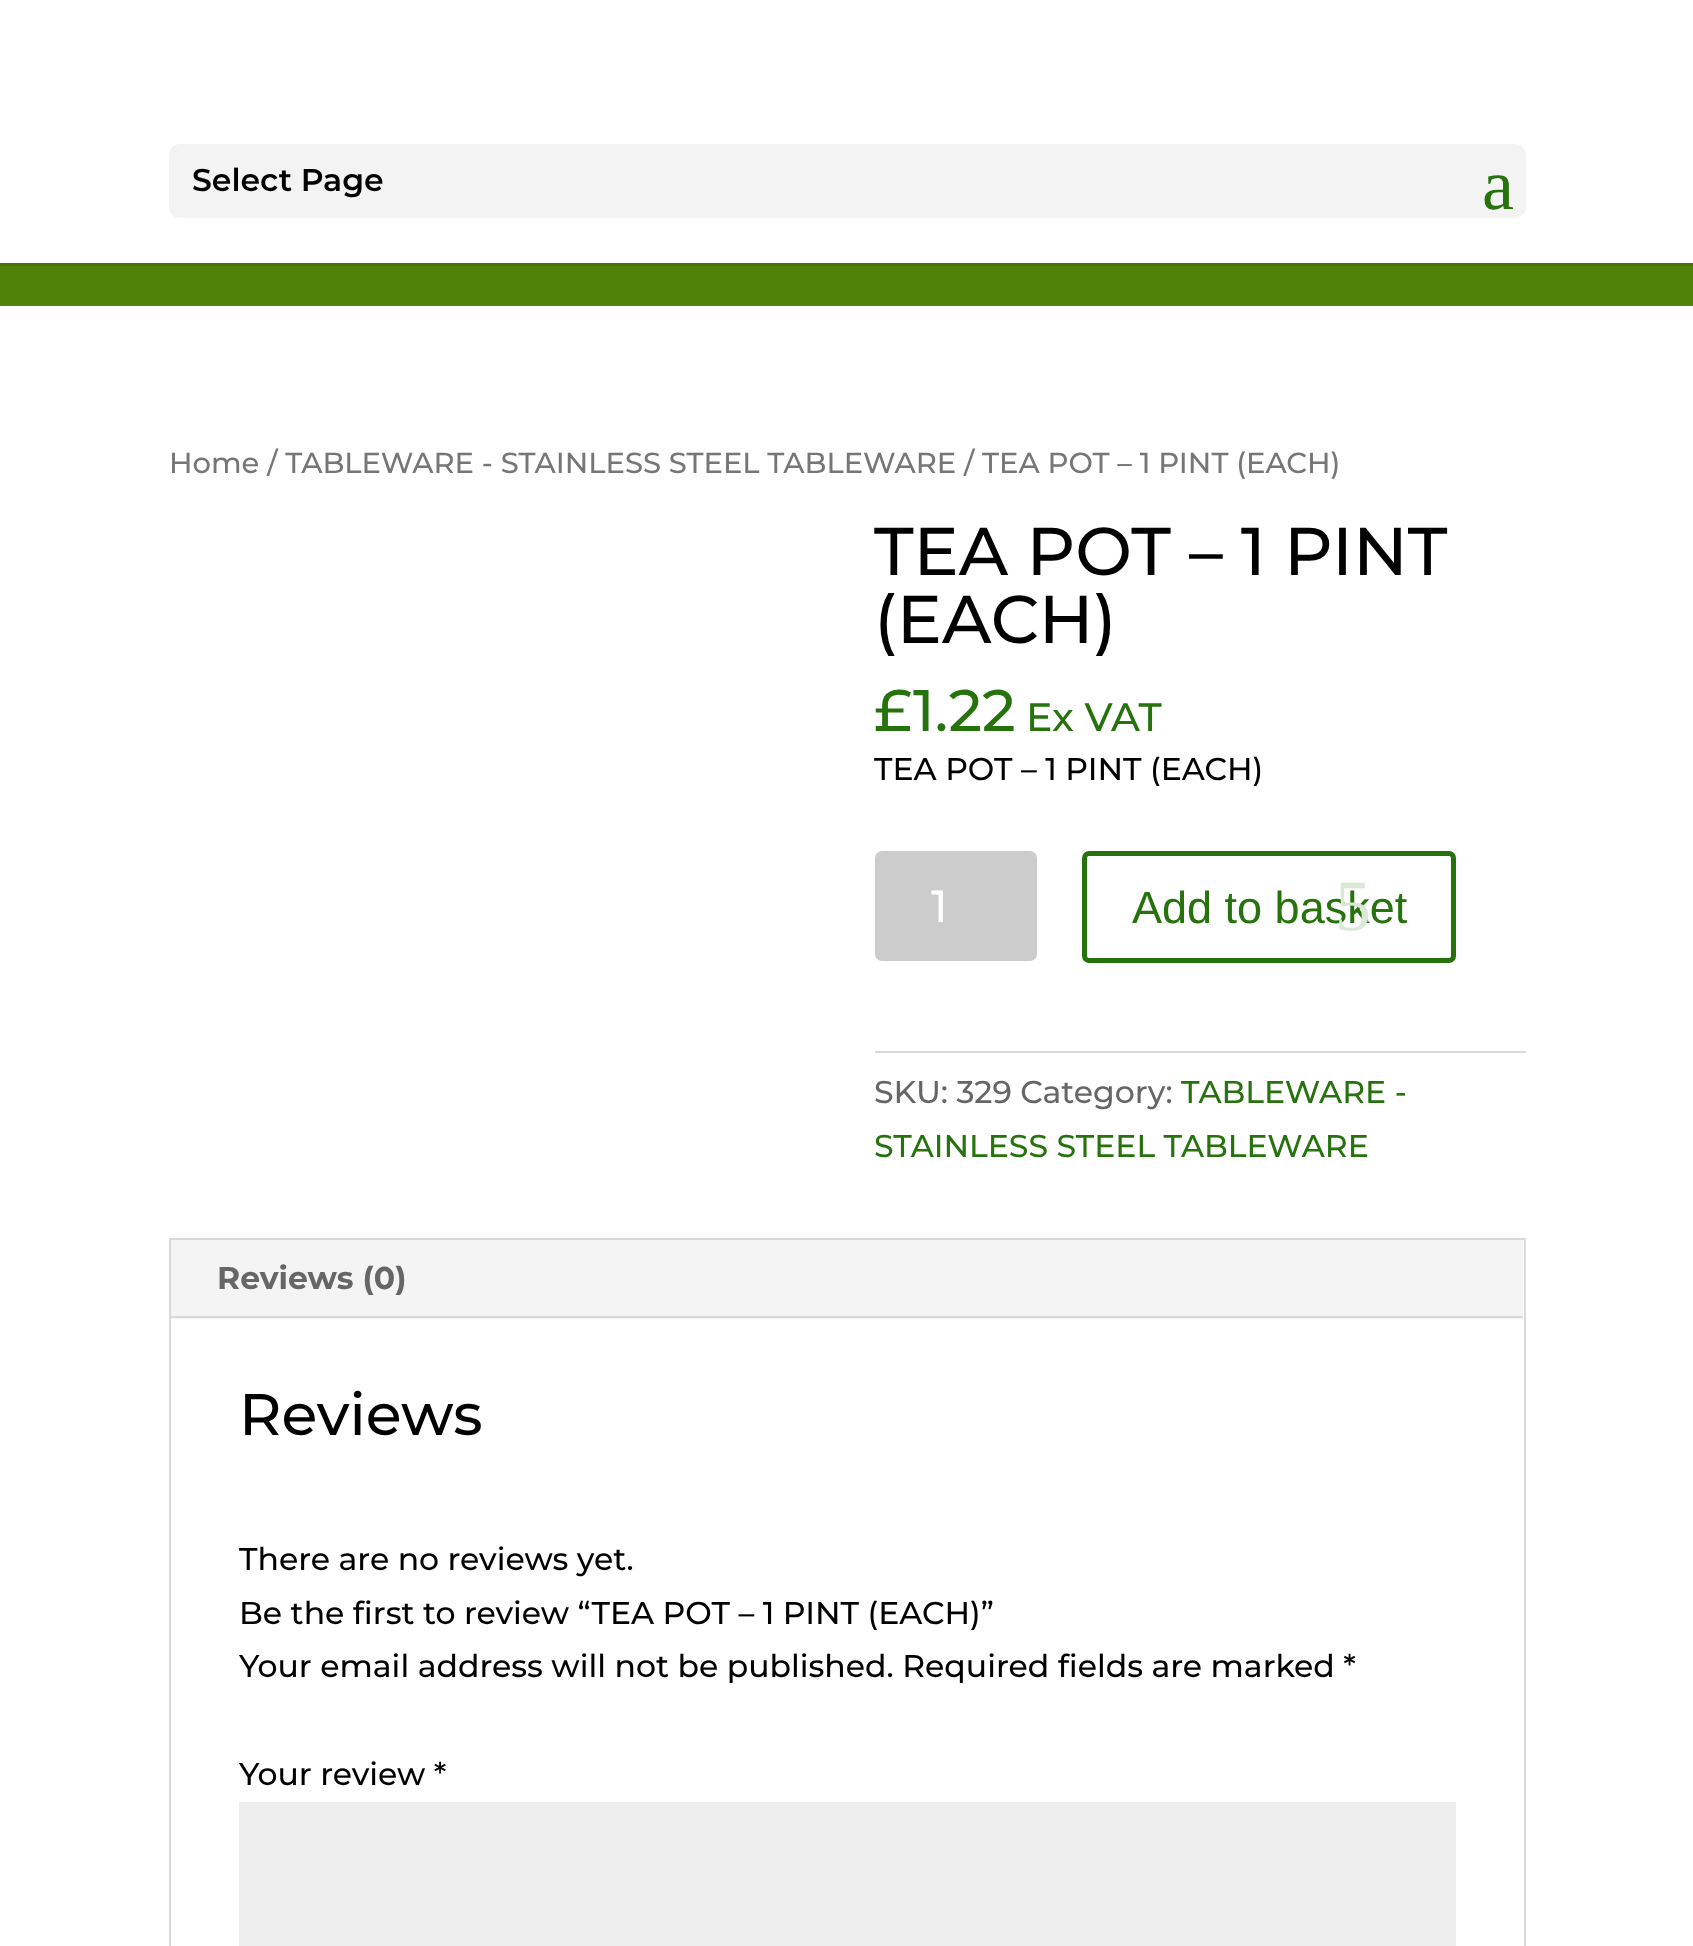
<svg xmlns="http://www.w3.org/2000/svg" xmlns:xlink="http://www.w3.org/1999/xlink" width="1693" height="1946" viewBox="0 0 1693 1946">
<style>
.cls-1{font:600 31.5px Montserrat;fill:#000000}
.cls-2{font:72px Liberation Serif;fill:#26720c}
.cls-3{font:500 29px Montserrat;fill:#767676}
.cls-4{font:500 67.5px Montserrat;fill:#000000}
.cls-5{font:500 58.5px Montserrat;fill:#26720c}
.cls-6{font:500 39.5px Montserrat;fill:#26720c}
.cls-7{font:500 31.5px Montserrat;fill:#000000}
.cls-8{font:500 45px Montserrat;fill:#ffffff}
.cls-9{font:45px Liberation Sans;fill:#26720c}
.cls-10{font:72px Liberation Serif;fill:#dbe8d7}
.cls-11{font:500 31.5px Montserrat;fill:#666666}
.cls-12{font:500 31.5px Montserrat;fill:#26720c}
.cls-13{font:bold 31.5px Montserrat;fill:#666666}
.cls-14{font:500 58.5px Montserrat;fill:#000000}
</style>
<rect width="100%" height="100%" fill="#50820a"/>
<rect fill="#487509" x="0" y="263" width="1693" height="3"/>
<rect fill="#ffffff" x="0" y="0" width="1693" height="263"/>
<rect fill="#f3f3f3" x="169" y="144" width="1357" height="74" rx="11"/>
<rect fill="#ffffff" x="0" y="306" width="1693" height="1640"/>
<rect fill="#cccccc" x="875" y="851" width="162" height="110" rx="7"/>
<rect fill="none" stroke="#26720c" stroke-width="5" x="1084.5" y="853.5" width="369" height="107" rx="4.5"/>
<rect fill="#dadada" x="875" y="1051" width="651" height="2"/>
<rect fill="none" stroke="#d9d9d9" stroke-width="2" x="170" y="1239" width="1355" height="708"/>
<rect fill="#f4f4f4" x="171" y="1240" width="1352" height="79"/>
<rect fill="#d9d9d9" x="171" y="1316" width="1352" height="2"/>
<rect fill="#eeeeee" x="239" y="1802" width="1217" height="144"/>
<text class="cls-1" x="192" y="191">Select Page</text>
<text class="cls-2" x="1482" y="209">a</text>
<text class="cls-3" x="169" y="473">Home / TABLEWARE - STAINLESS STEEL TABLEWARE / TEA POT – 1 PINT (EACH)</text>
<text class="cls-4"><tspan x="874" y="575">TEA POT – 1 PINT</tspan><tspan x="874" y="643">(EACH)</tspan></text>
<text class="cls-5" x="874" y="731">£</text>
<text class="cls-5" x="913" y="731">1.22</text>
<text class="cls-6" x="1026" y="731">Ex VAT</text>
<text class="cls-7" x="874" y="780">TEA POT – 1 PINT (EACH)</text>
<text class="cls-8" x="931" y="922">1</text>
<text class="cls-9" x="1132" y="923">Add to basket</text>
<text class="cls-10" x="1335" y="930">5</text>
<text class="cls-11" x="874" y="1103">SKU: 329 Category:</text>
<text class="cls-12" x="1181" y="1103">TABLEWARE -</text>
<text class="cls-12" x="874" y="1157">STAINLESS STEEL TABLEWARE</text>
<text class="cls-13" x="217" y="1289">Reviews (0)</text>
<text class="cls-14" x="239" y="1435">Reviews</text>
<text class="cls-7"><tspan x="239" y="1570">There are no reviews yet.</tspan><tspan x="239" y="1624">Be the first to review “TEA POT – 1 PINT (EACH)”</tspan><tspan x="239" y="1677">Your email address will not be published. Required fields are marked *</tspan></text>
<text class="cls-7" x="239" y="1785">Your review *</text>
</svg>
